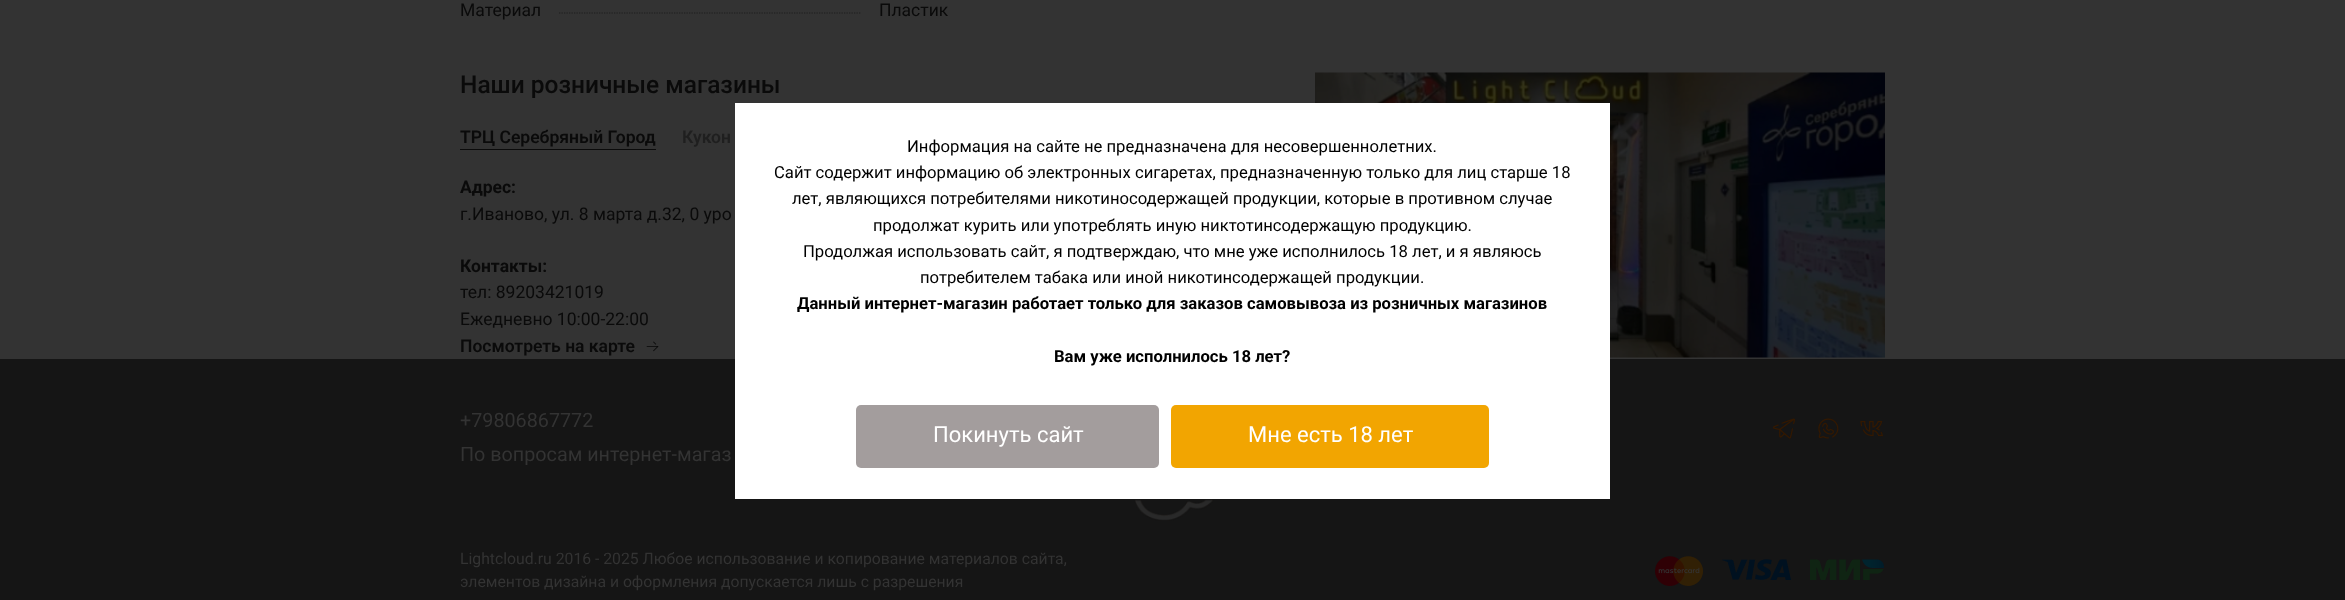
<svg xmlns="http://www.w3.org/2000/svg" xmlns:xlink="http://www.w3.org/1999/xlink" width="2345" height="600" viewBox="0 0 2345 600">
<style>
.cls-1{font:17.5px Roboto;fill:#0a0a0a}
.cls-2{font:500 24.5px Roboto;fill:#0a0a0a}
.cls-3{font:600 17.5px Roboto;fill:#0a0a0a}
.cls-4{font:600 17.5px Roboto;fill:#1f1f1f}
.cls-5{font:bold 17.5px Roboto;fill:#0a0a0a}
.cls-6{font:19.75px Roboto;fill:#333333}
.cls-7{font:15.75px Roboto;fill:#333333}
.cls-8{font:16.65px Roboto;fill:#000000}
.cls-9{font:bold 16.65px Roboto;fill:#000000}
.cls-10{font:22px Roboto;fill:#ffffff}
</style>
<rect width="100%" height="100%" fill="#333333"/>
<path fill="none" stroke="#1f1f1f" stroke-width="1.2" stroke-dasharray="1.25 1.25" d="M559 13H861"/>
<rect fill="#0a0a0a" x="460" y="149" width="196" height="1"/>
<image xlink:href="image0.png" x="646" y="341" width="13" height="11"/>
<image xlink:href="image1.png" x="1315" y="72" width="570" height="286"/>
<rect fill="#151515" x="0" y="359" width="2345" height="241"/>
<image xlink:href="image2.png" x="1773" y="418" width="22" height="21"/>
<image xlink:href="image3.png" x="1818" y="418" width="21" height="21"/>
<image xlink:href="image4.png" x="1860" y="420" width="23" height="17"/>
<image xlink:href="image5.png" x="1131" y="499" width="83" height="22"/>
<image xlink:href="image6.png" x="1655" y="556" width="49" height="30"/>
<image xlink:href="image7.png" x="1722" y="559" width="69" height="21"/>
<image xlink:href="image8.png" x="1810" y="559" width="74" height="21"/>
<rect fill="#ffffff" x="735" y="103" width="875" height="396"/>
<rect fill="#a39d9d" x="856" y="405" width="303" height="63" rx="5"/>
<rect fill="#f2a501" x="1171" y="405" width="318" height="63" rx="5"/>
<text class="cls-1" x="460" y="16">Материал</text>
<text class="cls-1" x="879" y="16">Пластик</text>
<text class="cls-2" x="460" y="93">Наши розничные магазины</text>
<text class="cls-3" x="460" y="143">ТРЦ Серебряный Город</text>
<text class="cls-4" x="682" y="143">Кукон</text>
<text class="cls-5" x="460" y="193">Адрес:</text>
<text class="cls-1" x="460" y="220">г.Иваново, ул. 8 марта д.32, 0 уро</text>
<text class="cls-5" x="460" y="272">Контакты:</text>
<text class="cls-1"><tspan x="460" y="298">тел: 89203421019</tspan><tspan x="460" y="325">Ежедневно 10:00-22:00</tspan></text>
<text class="cls-3" x="460" y="352">Посмотреть на карте</text>
<text class="cls-6"><tspan x="460" y="427">+79806867772</tspan><tspan x="460" y="461">По вопросам интернет-магаз</tspan></text>
<text class="cls-7"><tspan x="460" y="564">Lightcloud.ru 2016 - 2025 Любое использование и копирование материалов сайта,</tspan><tspan x="460" y="587">элементов дизайна и оформления допускается лишь с разрешения</tspan></text>
<text class="cls-8" x="907" y="152">Информация на сайте не предназначена для несовершеннолетних.</text>
<text class="cls-8" x="774" y="178">Сайт содержит информацию об электронных сигаретах, предназначенную только для лиц старше 18</text>
<text class="cls-8" x="792" y="204">лет, являющихся потребителями никотиносодержащей продукции, которые в противном случае</text>
<text class="cls-8" x="873" y="231">продолжат курить или употреблять иную никтотинсодержащую продукцию.</text>
<text class="cls-8" x="803" y="257">Продолжая использовать сайт, я подтверждаю, что мне уже исполнилось 18 лет, и я являюсь</text>
<text class="cls-8" x="920" y="283">потребителем табака или иной никотинсодержащей продукции.</text>
<text class="cls-9" x="797" y="309">Данный интернет-магазин работает только для заказов самовывоза из розничных магазинов</text>
<text class="cls-9" x="1054" y="362">Вам уже исполнилось 18 лет?</text>
<text class="cls-10" x="933" y="442">Покинуть сайт</text>
<text class="cls-10" x="1248" y="442">Мне есть 18 лет</text>
</svg>
